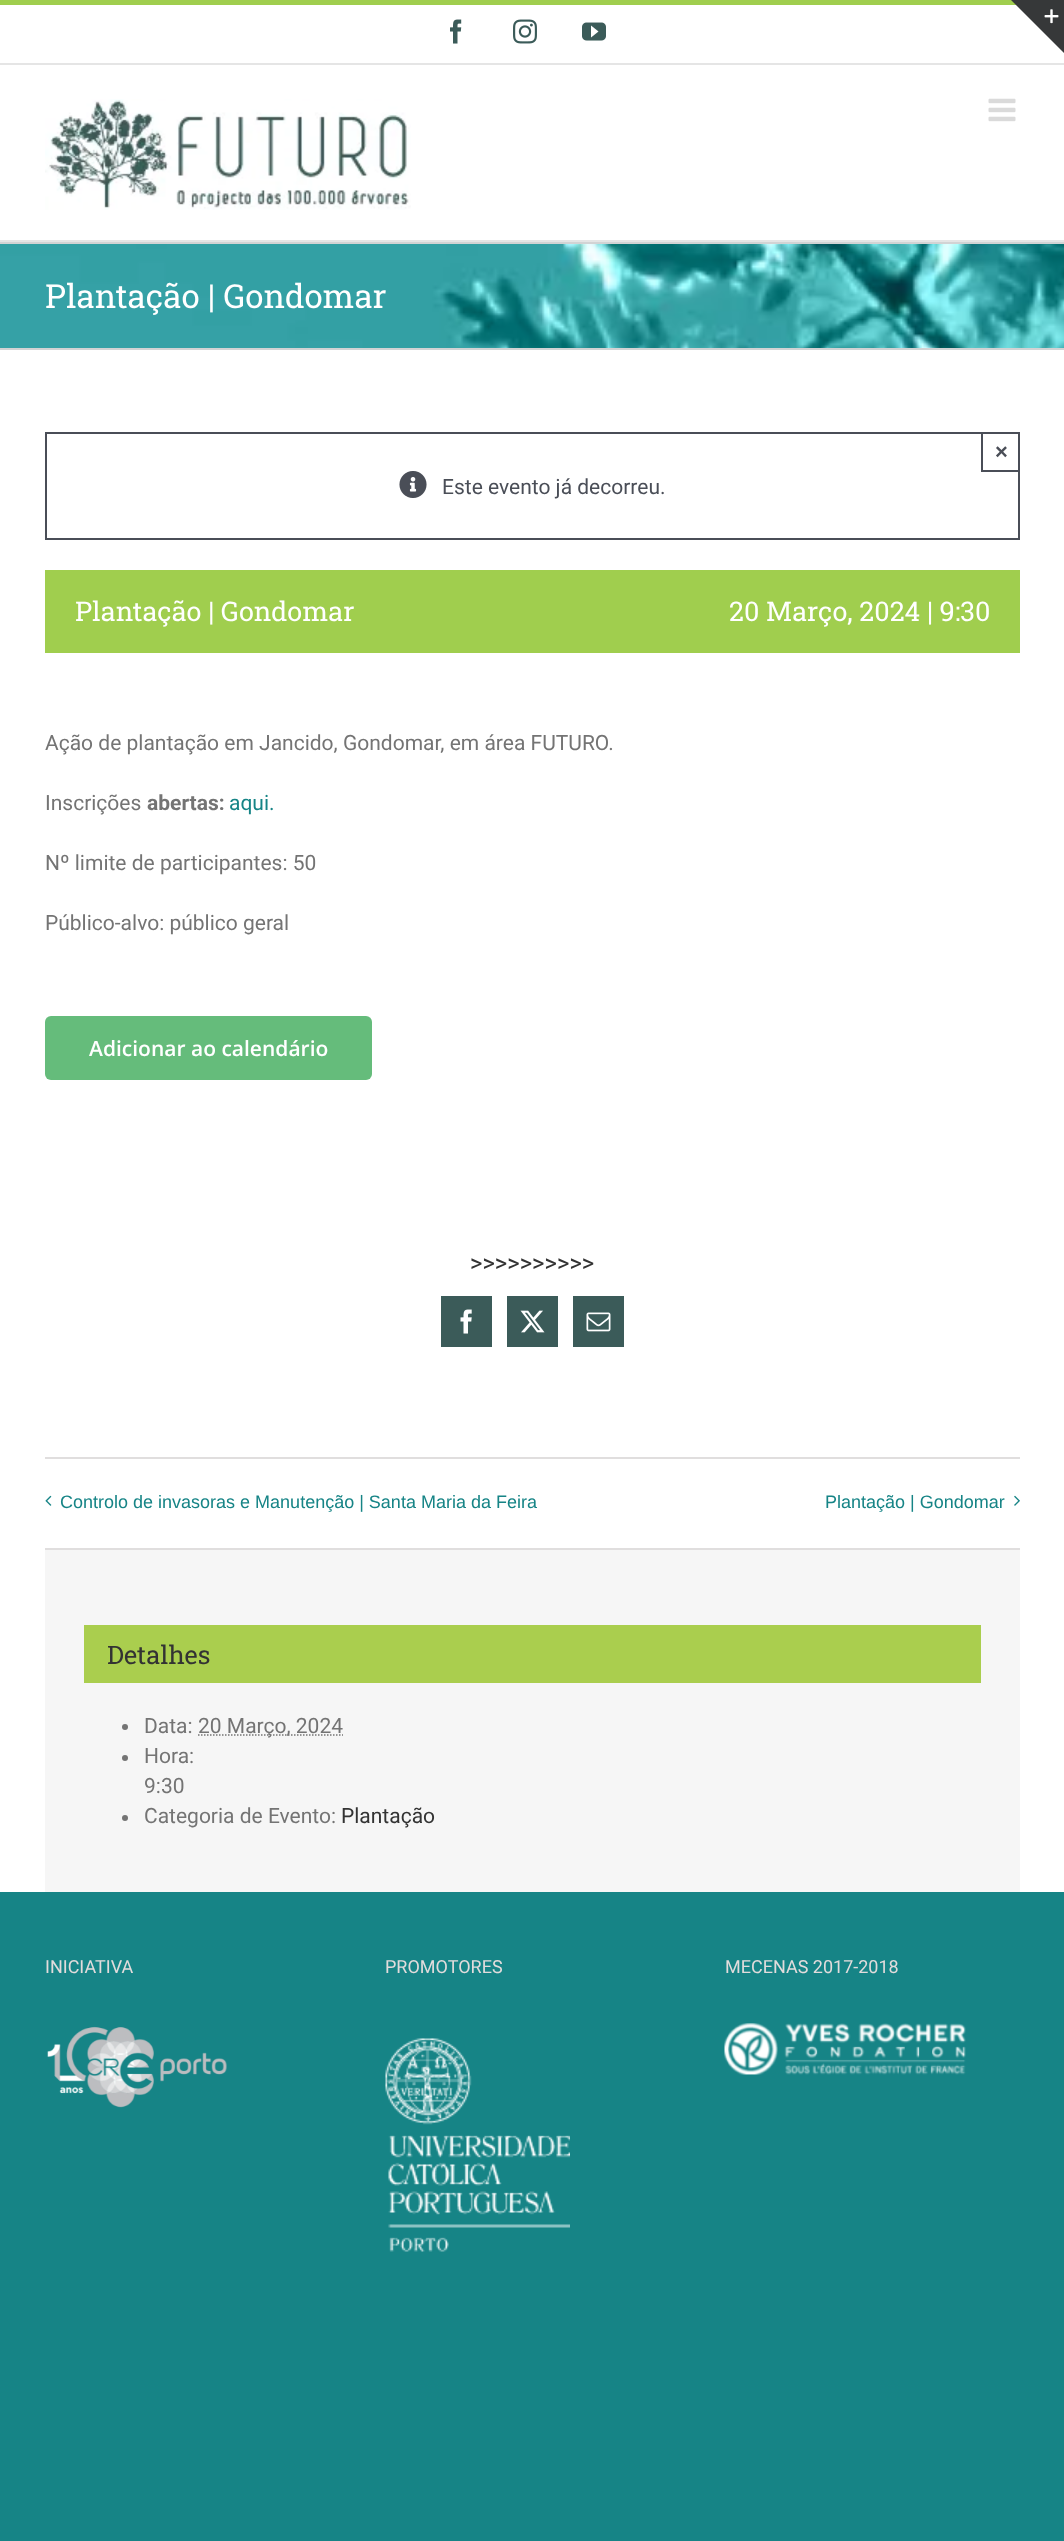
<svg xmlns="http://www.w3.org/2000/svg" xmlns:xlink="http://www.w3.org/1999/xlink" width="1064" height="2541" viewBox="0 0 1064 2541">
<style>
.cls-1{font:33px Roboto Slab;fill:#ffffff}
.cls-2{font:bold 22px Liberation Sans;fill:#4a4e57}
.cls-3{font:21px Roboto;fill:#4a4e57}
.cls-4{font:27px Roboto Slab;fill:#ffffff}
.cls-5{font:21px Roboto;fill:#747474}
.cls-6{font:bold 21px Roboto;fill:#747474}
.cls-7{font:21px Roboto;fill:#168486}
.cls-8{font:600 21px Open Sans;fill:#ffffff}
.cls-9{font:24px Roboto Slab;fill:#333333}
.cls-10{font:18px Liberation Sans;fill:#168486}
.cls-11{font:25.5px Roboto Slab;fill:#333333}
.cls-12{font:21px Roboto;fill:#333333}
.cls-13{font:18px Roboto;fill:#e2dcdc}
</style>
<rect width="100%" height="100%" fill="#ffffff"/>
<rect fill="#a0ce4e" x="0" y="0" width="1016" height="5"/>
<rect fill="#e5e5e5" x="0" y="63" width="1064" height="2"/>
<image xlink:href="image0.png" x="450" y="19" width="12" height="25"/>
<image xlink:href="image1.png" x="513" y="19" width="24" height="25"/>
<image xlink:href="image2.png" x="582" y="22" width="24" height="19"/>
<rect fill="#e5e5e5" x="0" y="240" width="1064" height="2"/>
<image xlink:href="image3.png" x="45" y="99" width="366" height="111"/>
<image xlink:href="image4.png" x="988" y="98" width="28" height="24"/>
<path fill="#363839" d="M1011 0H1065V54Z"/>
<image xlink:href="image5.png" x="1044" y="9" width="15" height="15"/>
<image xlink:href="image6.png" x="0" y="244" width="1064" height="104"/>
<rect fill="#d2d3d4" x="0" y="242" width="1064" height="2"/>
<rect fill="#d2d3d4" x="0" y="348" width="1064" height="2"/>
<rect fill="none" stroke="#4a4e57" stroke-width="2" x="46" y="433" width="973" height="106"/>
<rect fill="#4a4e57" x="981" y="470" width="39" height="2"/>
<rect fill="#4a4e57" x="981" y="432" width="2" height="39"/>
<image xlink:href="image7.png" x="399" y="471" width="28" height="27"/>
<rect fill="#a0ce4e" x="45" y="570" width="975" height="83"/>
<rect fill="#65bc7b" x="45" y="1016" width="327" height="64" rx="6"/>
<rect fill="#3b5b59" x="441" y="1296" width="51" height="51"/>
<image xlink:href="image8.png" x="460" y="1309" width="12" height="25"/>
<rect fill="#3b5b59" x="507" y="1296" width="51" height="51"/>
<image xlink:href="image9.png" x="520" y="1310" width="25" height="23"/>
<rect fill="#3b5b59" x="573" y="1296" width="51" height="51"/>
<image xlink:href="image10.png" x="586" y="1312" width="25" height="20"/>
<rect fill="#e0dede" x="45" y="1457" width="975" height="2"/>
<rect fill="#e0dede" x="45" y="1548" width="975" height="2"/>
<image xlink:href="image11.png" x="45" y="1495" width="7" height="11"/>
<image xlink:href="image12.png" x="1014" y="1495" width="6" height="11"/>
<rect fill="#f6f6f6" x="45" y="1550" width="975" height="342"/>
<rect fill="#aace4e" x="84" y="1625" width="897" height="58"/>
<circle fill="#747474" cx="125" cy="1727" r="3"/>
<path fill="none" stroke="#747474" stroke-width="1.5" stroke-dasharray="1.5 1.5" d="M198 1735H343"/>
<circle fill="#747474" cx="125" cy="1758" r="3"/>
<circle fill="#747474" cx="125" cy="1818" r="3"/>
<rect fill="#168486" x="0" y="1892" width="1064" height="649"/>
<image xlink:href="image13.png" x="47" y="2026" width="180" height="82"/>
<image xlink:href="image14.png" x="385" y="2038" width="185" height="214"/>
<image xlink:href="image15.png" x="724" y="2023" width="242" height="52"/>
<text class="cls-1" x="45" y="308">Plantação | Gondomar</text>
<text class="cls-2" x="995" y="459">×</text>
<text class="cls-3" x="442" y="494">Este evento já decorreu.</text>
<text class="cls-4" x="75" y="621">Plantação | Gondomar</text>
<text class="cls-4" x="729" y="621">20 Março, 2024 | 9:30</text>
<text class="cls-5" x="45" y="750">Ação de plantação em Jancido, Gondomar, em área FUTURO.</text>
<text class="cls-5" x="45" y="810">Inscrições</text>
<text class="cls-6" x="147" y="810">abertas:</text>
<text class="cls-7" x="229" y="810">aqui.</text>
<text class="cls-5" x="45" y="870">Nº limite de participantes: 50</text>
<text class="cls-5" x="45" y="930">Público-alvo: público geral</text>
<text class="cls-8" x="89" y="1056">Adicionar ao calendário</text>
<text class="cls-9" x="470" y="1270">&gt;&gt;&gt;&gt;&gt;&gt;&gt;&gt;&gt;&gt;</text>
<text class="cls-10" x="60" y="1508">Controlo de invasoras e Manutenção | Santa Maria da Feira</text>
<text class="cls-10" x="825" y="1508">Plantação | Gondomar</text>
<text class="cls-11" x="107" y="1664">Detalhes</text>
<text class="cls-5" x="144" y="1733">Data:</text>
<text class="cls-5" x="198" y="1733">20 Março, 2024</text>
<text class="cls-5"><tspan x="144" y="1763">Hora:</tspan><tspan x="144" y="1793">9:30</tspan><tspan x="144" y="1823">Categoria de Evento:</tspan></text>
<text class="cls-12" x="341" y="1823">Plantação</text>
<text class="cls-13" x="45" y="1973">INICIATIVA</text>
<text class="cls-13" x="385" y="1973">PROMOTORES</text>
<text class="cls-13" x="725" y="1973">MECENAS 2017-2018</text>
</svg>
